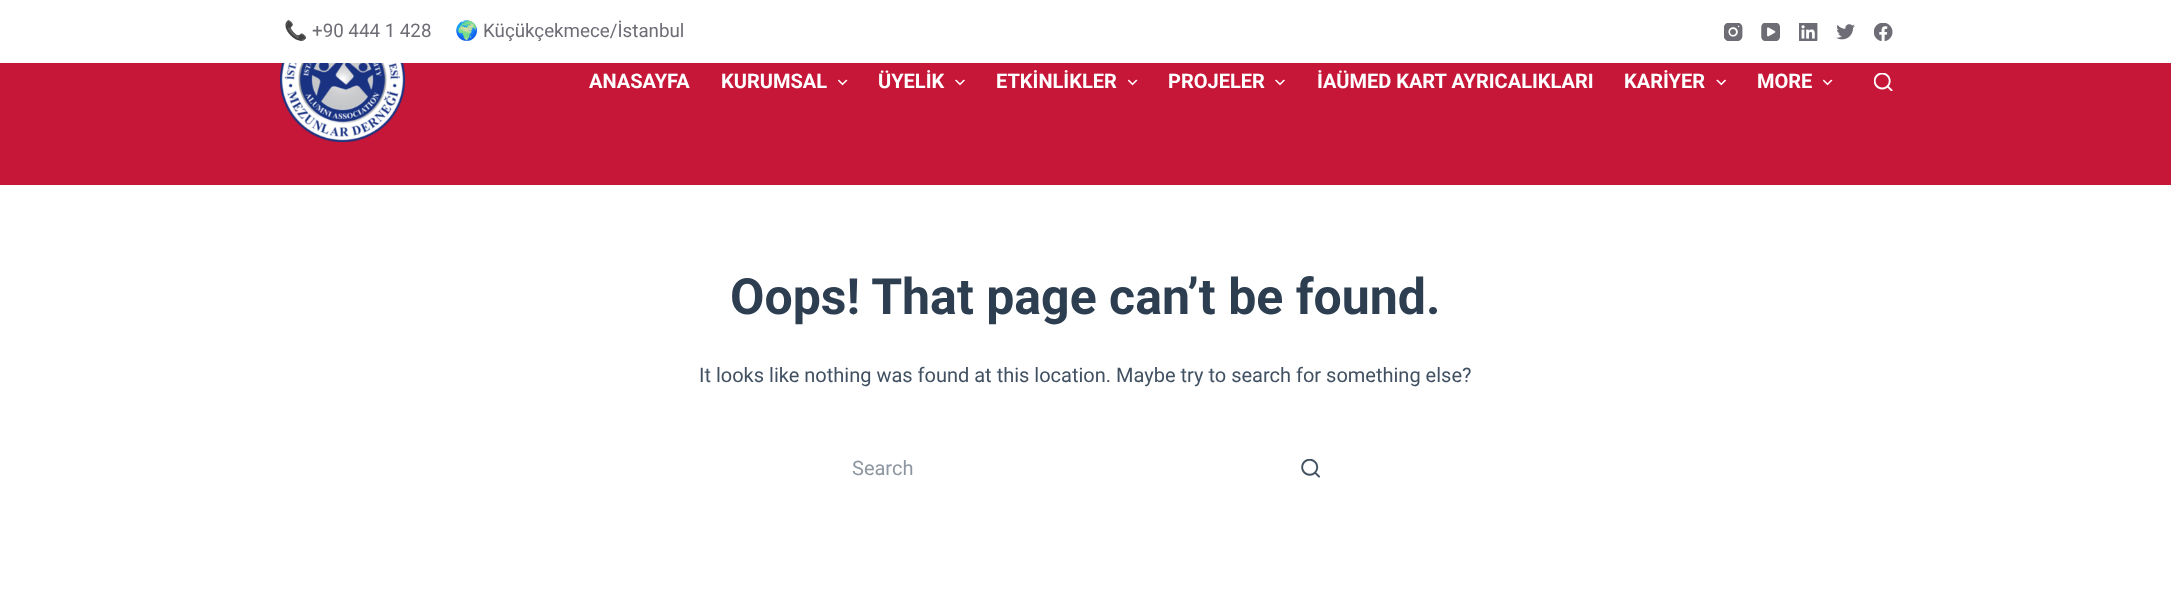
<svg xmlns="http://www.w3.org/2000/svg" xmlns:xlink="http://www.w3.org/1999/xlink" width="2171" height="599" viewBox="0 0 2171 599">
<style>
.cls-1{font:18.75px Noto Color Emoji;fill:#6e6d76}
.cls-2{font:18.75px Roboto;fill:#6e6d76}
.cls-3{font:bold 20px Roboto;fill:#ffffff}
.cls-4{font:bold 50px Roboto;fill:#2c3e50}
.cls-5{font:20px Roboto;fill:#415162}
.cls-6{font:20px Roboto;fill:#8d97a1}
</style>
<rect width="100%" height="100%" fill="#ffffff"/>
<image xlink:href="image0.png" x="1724" y="23" width="19" height="18"/>
<image xlink:href="image1.png" x="1761" y="23" width="19" height="18"/>
<image xlink:href="image2.png" x="1799" y="23" width="19" height="18"/>
<image xlink:href="image3.png" x="1836" y="24" width="19" height="16"/>
<image xlink:href="image4.png" x="1874" y="23" width="19" height="18"/>
<rect fill="#c61738" x="0" y="63" width="2171" height="122"/>
<image xlink:href="image5.png" x="280" y="63" width="125" height="79"/>
<image xlink:href="image6.png" x="838" y="79" width="10" height="7"/>
<image xlink:href="image7.png" x="955" y="79" width="10" height="7"/>
<image xlink:href="image6.png" x="1128" y="79" width="10" height="7"/>
<image xlink:href="image7.png" x="1275" y="79" width="10" height="7"/>
<image xlink:href="image8.png" x="1716" y="79" width="10" height="7"/>
<image xlink:href="image6.png" x="1823" y="79" width="10" height="7"/>
<image xlink:href="image9.png" x="1874" y="73" width="19" height="18"/>
<image xlink:href="image10.png" x="1301" y="459" width="19" height="19"/>
<text class="cls-1" x="284" y="37">📞</text>
<text class="cls-2" x="312" y="37">+90 444 1 428</text>
<text class="cls-1" x="455" y="37">🌍</text>
<text class="cls-2" x="483" y="37">Küçükçekmece/İstanbul</text>
<text class="cls-3" x="589" y="88">ANASAYFA</text>
<text class="cls-3" x="721" y="88">KURUMSAL</text>
<text class="cls-3" x="878" y="88">ÜYELİK</text>
<text class="cls-3" x="996" y="88">ETKİNLİKLER</text>
<text class="cls-3" x="1168" y="88">PROJELER</text>
<text class="cls-3" x="1317" y="88">İAÜMED KART AYRICALIKLARI</text>
<text class="cls-3" x="1624" y="88">KARİYER</text>
<text class="cls-3" x="1757" y="88">MORE</text>
<text class="cls-4" x="730" y="314">Oops! That page can’t be found.</text>
<text class="cls-5" x="699" y="382">It looks like nothing was found at this location. Maybe try to search for something else?</text>
<text class="cls-6" x="852" y="475">Search</text>
</svg>
